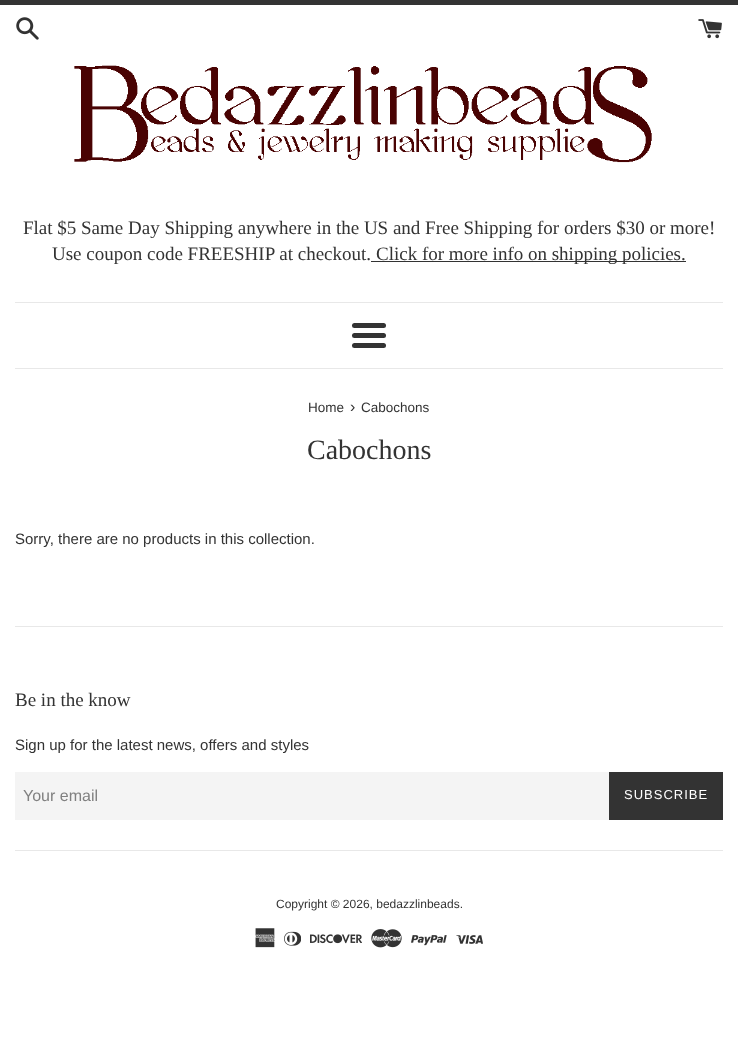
<svg xmlns="http://www.w3.org/2000/svg" xmlns:xlink="http://www.w3.org/1999/xlink" width="738" height="1046" viewBox="0 0 738 1046">
<style>
.cls-1{font:19px Liberation Serif;fill:#333333}
.cls-2{font:13.5px Liberation Sans;fill:#333333}
.cls-3{font:16px Liberation Sans;fill:#333333}
.cls-4{font:28px Liberation Serif;fill:#333333}
.cls-5{font:15px Liberation Sans;fill:#333333}
.cls-6{font:16px Liberation Sans;fill:#808080}
.cls-7{font:13px Liberation Sans;letter-spacing:1px;fill:#ffffff}
.cls-8{font:12px Liberation Sans;fill:#333333}
</style>
<rect width="100%" height="100%" fill="#ffffff"/>
<rect fill="#333333" x="0" y="0" width="738" height="5"/>
<image xlink:href="image0.png" x="16" y="17" width="23" height="23"/>
<image xlink:href="image1.png" x="698" y="19" width="24" height="20"/>
<image xlink:href="image2.png" x="74" y="65" width="578" height="98"/>
<rect fill="#333333" x="371" y="261" width="315" height="1"/>
<rect fill="#e8e8e8" x="15" y="302" width="708" height="1"/>
<rect fill="#333333" x="352" y="323" width="34" height="5" rx="2.5"/>
<rect fill="#333333" x="352" y="333" width="34" height="5" rx="2.5"/>
<rect fill="#333333" x="352" y="343" width="34" height="5" rx="2.5"/>
<rect fill="#e8e8e8" x="15" y="368" width="708" height="1"/>
<rect fill="#e8e8e8" x="15" y="626" width="708" height="1"/>
<rect fill="#f4f4f4" x="15" y="772" width="594" height="48"/>
<rect fill="#333333" x="609" y="772" width="114" height="48"/>
<rect fill="#e8e8e8" x="15" y="850" width="708" height="1"/>
<image xlink:href="image3.png" x="255" y="928" width="20" height="20"/>
<image xlink:href="image4.png" x="284" y="931" width="17" height="15"/>
<image xlink:href="image5.png" x="310" y="934" width="52" height="10"/>
<image xlink:href="image6.png" x="371" y="929" width="31" height="19"/>
<image xlink:href="image7.png" x="411" y="935" width="36" height="11"/>
<image xlink:href="image8.png" x="456" y="935" width="27" height="9"/>
<text class="cls-1" x="23" y="234">Flat $5 Same Day Shipping anywhere in the US and Free Shipping for orders $30 or more!</text>
<text class="cls-1" x="52" y="260">Use coupon code FREESHIP at checkout.</text>
<text class="cls-1" x="376" y="260">Click for more info on shipping policies.</text>
<text class="cls-2" x="308" y="412">Home</text>
<text class="cls-3" x="350" y="412">›</text>
<text class="cls-2" x="361" y="412">Cabochons</text>
<text class="cls-4" x="307" y="459">Cabochons</text>
<text class="cls-5" x="15" y="544">Sorry, there are no products in this collection.</text>
<text class="cls-1" x="15" y="706">Be in the know</text>
<text class="cls-5" x="15" y="750">Sign up for the latest news, offers and styles</text>
<text class="cls-6" x="23" y="801">Your email</text>
<text class="cls-7" x="624" y="799">SUBSCRIBE</text>
<text class="cls-8" x="276" y="908">Copyright © 2026, bedazzlinbeads.</text>
</svg>
